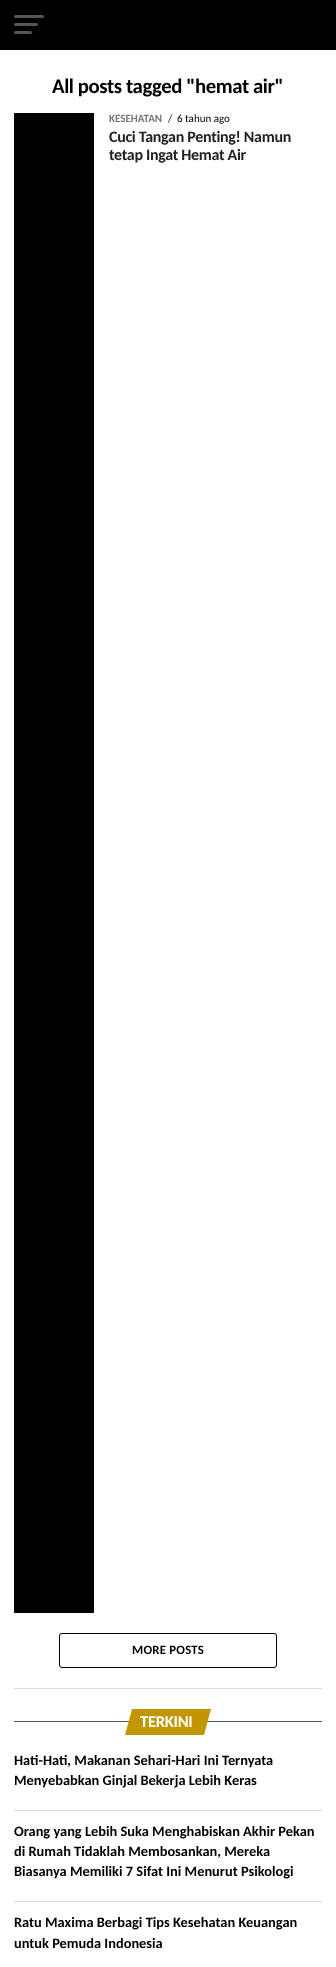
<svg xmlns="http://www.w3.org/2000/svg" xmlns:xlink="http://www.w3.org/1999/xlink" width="336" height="1967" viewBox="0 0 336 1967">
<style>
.cls-1{font:bold 20.75px Carlito;letter-spacing:-0.4px;fill:#000000}
.cls-2{font:bold 11px Carlito;fill:#777777}
.cls-3{font:11px Carlito;fill:#000000}
.cls-4{font:bold 16px Carlito;letter-spacing:-0.3px;fill:#222222}
.cls-5{font:bold 12.75px Carlito;letter-spacing:0.25px;fill:#000000}
.cls-6{font:bold 16.5px Carlito;letter-spacing:-0.25px;fill:#ffffff}
.cls-7{font:bold 14.4px Carlito;fill:#000000}
</style>
<rect width="100%" height="100%" fill="#ffffff"/>
<rect fill="#000000" x="0" y="0" width="336" height="50"/>
<rect fill="#555555" x="14" y="15" width="30" height="3" rx="1.5"/>
<rect fill="#555555" x="14" y="23" width="24" height="3" rx="1.5"/>
<rect fill="#555555" x="14" y="31" width="18" height="3" rx="1.5"/>
<rect fill="#000000" x="14" y="113" width="80" height="1500"/>
<rect fill="none" stroke="#000000" x="59.5" y="1633.5" width="217" height="34" rx="2.5"/>
<rect fill="#dddddd" x="14" y="1688" width="308" height="1"/>
<rect fill="#555555" x="14" y="1721" width="308" height="1"/>
<path fill="#c19600" d="M132 1709H211L204 1735H125Z"/>
<rect fill="#dddddd" x="14" y="1810" width="308" height="1"/>
<rect fill="#dddddd" x="14" y="1901" width="308" height="1"/>
<text class="cls-1" x="52" y="93">All posts tagged "hemat air"</text>
<text class="cls-2" x="109" y="122">KESEHATAN</text>
<text class="cls-3" x="168" y="122">/</text>
<text class="cls-3" x="177" y="122">6 tahun ago</text>
<text class="cls-4"><tspan x="109" y="142">Cuci Tangan Penting! Namun</tspan><tspan x="109" y="160">tetap Ingat Hemat Air</tspan></text>
<text class="cls-5" x="132" y="1654">MORE POSTS</text>
<text class="cls-6" x="140" y="1727">TERKINI</text>
<text class="cls-7"><tspan x="14" y="1765">Hati-Hati, Makanan Sehari-Hari Ini Ternyata</tspan><tspan x="14" y="1785">Menyebabkan Ginjal Bekerja Lebih Keras</tspan></text>
<text class="cls-7"><tspan x="14" y="1836">Orang yang Lebih Suka Menghabiskan Akhir Pekan</tspan><tspan x="14" y="1856">di Rumah Tidaklah Membosankan, Mereka</tspan><tspan x="14" y="1876">Biasanya Memiliki 7 Sifat Ini Menurut Psikologi</tspan></text>
<text class="cls-7"><tspan x="14" y="1927">Ratu Maxima Berbagi Tips Kesehatan Keuangan</tspan><tspan x="14" y="1948">untuk Pemuda Indonesia</tspan></text>
</svg>
